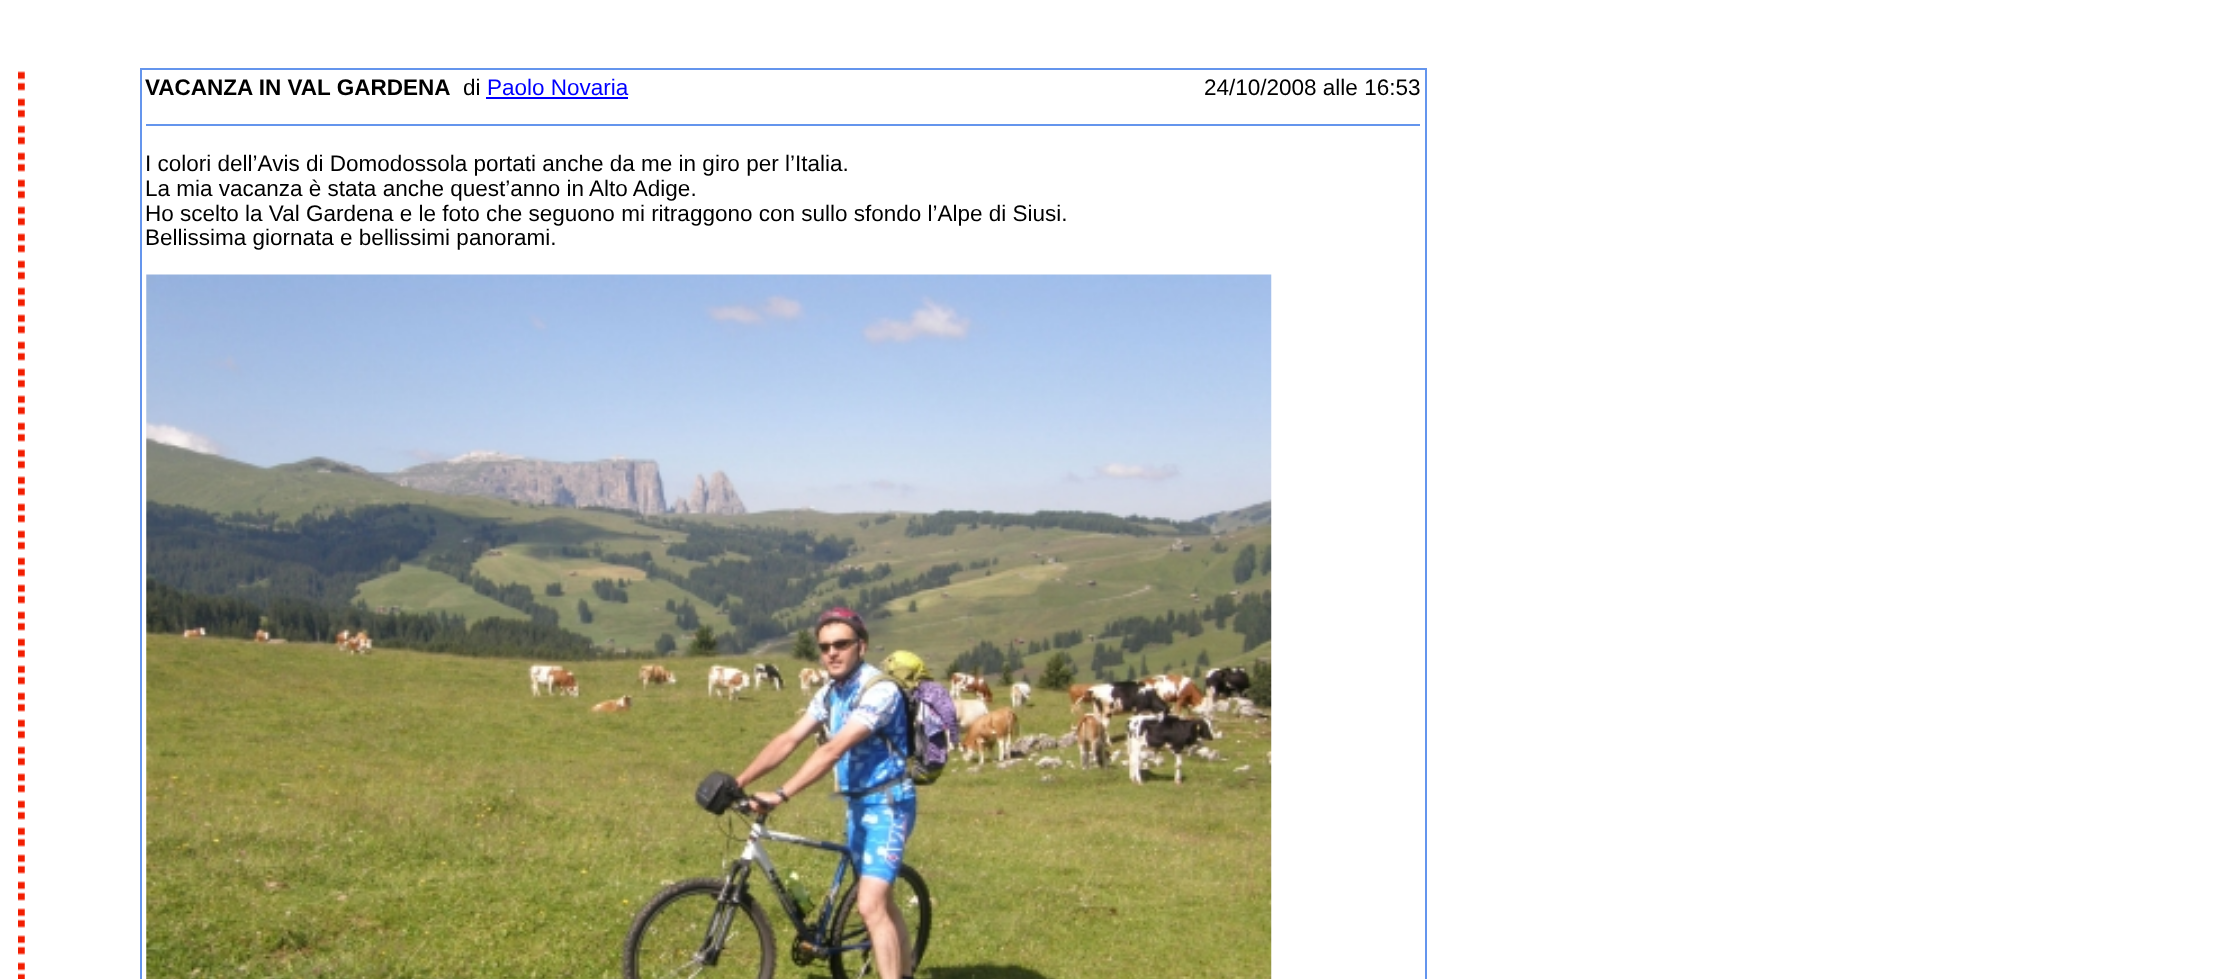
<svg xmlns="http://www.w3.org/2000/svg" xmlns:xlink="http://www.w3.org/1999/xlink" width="2221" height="979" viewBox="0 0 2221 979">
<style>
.cls-1{font:bold 22.5px Liberation Sans;fill:#000000}
.cls-2{font:22.5px Liberation Sans;fill:#000000}
.cls-3{font:22.5px Liberation Sans;fill:#0000ff}
</style>
<rect width="100%" height="100%" fill="#ffffff"/>
<image xlink:href="image0.png" x="18" y="71" width="7" height="908"/>
<rect fill="none" stroke="#6495ed" stroke-width="2" x="141" y="69" width="1285" height="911"/>
<rect fill="#0000ff" x="486" y="97" width="142" height="2"/>
<rect fill="#6495ed" x="146" y="124" width="1274" height="2"/>
<image xlink:href="image1.png" x="146" y="274" width="1126" height="705"/>
<text class="cls-1" x="145" y="95">VACANZA IN VAL GARDENA</text>
<text class="cls-2" x="463" y="95">di</text>
<text class="cls-3" x="487" y="95">Paolo Novaria</text>
<text class="cls-2" x="1204" y="95">24/10/2008 alle 16:53</text>
<text class="cls-2"><tspan x="145" y="171">I colori dell’Avis di Domodossola portati anche da me in giro per l’Italia.</tspan><tspan x="145" y="196">La mia vacanza è stata anche quest’anno in Alto Adige.</tspan><tspan x="145" y="221">Ho scelto la Val Gardena e le foto che seguono mi ritraggono con sullo sfondo l’Alpe di Siusi.</tspan><tspan x="145" y="245">Bellissima giornata e bellissimi panorami.</tspan></text>
</svg>
